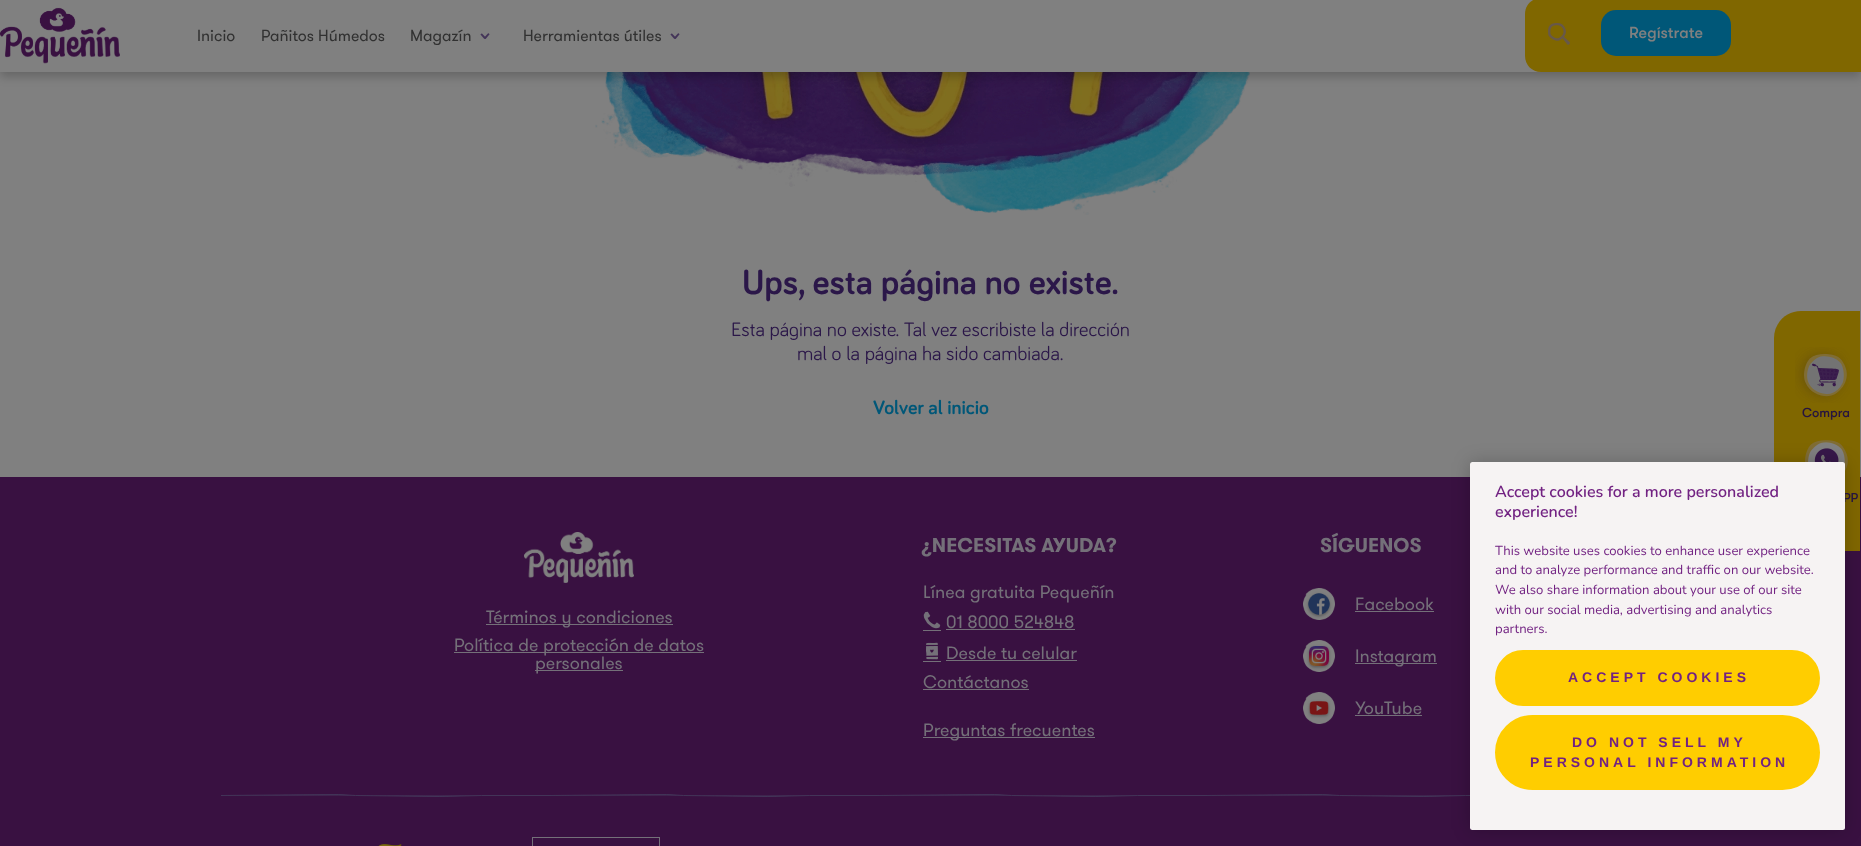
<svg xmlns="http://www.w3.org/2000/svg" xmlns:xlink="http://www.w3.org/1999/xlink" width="1861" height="846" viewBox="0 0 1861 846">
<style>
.cls-1{font:16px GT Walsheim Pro;fill:#313131}
.cls-2{font:500 16px GT Walsheim Pro;fill:#808080}
.cls-3{font:bold 36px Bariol;fill:#2b1749}
.cls-4{font:20px Bariol;fill:#2b1749}
.cls-5{font:bold 20px Bariol;fill:#005778}
.cls-6{font:18px GT Walsheim Pro;fill:#747079}
.cls-7{font:bold 20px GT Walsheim;fill:#747079}
.cls-8{font:500 13px GT Walsheim Pro;fill:#26143f}
.cls-9{font:600 16px Nunito;fill:#722282}
.cls-10{font:13.1px Nunito;fill:#722282}
.cls-11{font:bold 14px Liberation Sans;letter-spacing:4px;fill:#722282}
</style>
<rect width="100%" height="100%" fill="#808080"/>
<image xlink:href="image3.png" x="595" y="72" width="655" height="143"/>
<rect fill="#000000" fill-opacity="0.2" filter="blur(5px)" x="0" y="-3" width="1861" height="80"/>
<rect fill="#808080" x="0" y="0" width="1541" height="72"/>
<image xlink:href="image0.png" x="0" y="7" width="120" height="57"/>
<image xlink:href="image1.png" x="480" y="33" width="10" height="6"/>
<image xlink:href="image1.png" x="670" y="33" width="10" height="6"/>
<path fill="#806700" d="M1541-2H1861V72H1541C1532 72 1525 65 1525 56V14C1525 5 1532-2 1541-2Z"/>
<image xlink:href="image2.png" x="1548" y="23" width="22" height="22"/>
<rect fill="#005778" x="1601" y="10" width="130" height="46" rx="15"/>
<rect fill="#391141" x="0" y="477" width="1861" height="369"/>
<image xlink:href="image4.png" x="524" y="532" width="110" height="51"/>
<rect fill="#747079" x="486" y="624" width="187" height="1"/>
<rect fill="#747079" x="454" y="652" width="250" height="1"/>
<rect fill="#747079" x="535" y="670" width="88" height="1"/>
<image xlink:href="image5.png" x="923" y="611" width="18" height="18"/>
<rect fill="#747079" x="923" y="630" width="18" height="1"/>
<rect fill="#747079" x="946" y="629" width="129" height="1"/>
<image xlink:href="image6.png" x="926" y="642" width="12" height="18"/>
<rect fill="#747079" x="923" y="661" width="18" height="1"/>
<rect fill="#747079" x="946" y="660" width="131" height="1"/>
<rect fill="#747079" x="923" y="689" width="106" height="1"/>
<rect fill="#747079" x="923" y="737" width="172" height="1"/>
<image xlink:href="image7.png" x="1303" y="588" width="32" height="32"/>
<rect fill="#747079" x="1355" y="611" width="79" height="1"/>
<image xlink:href="image8.png" x="1303" y="640" width="32" height="32"/>
<rect fill="#747079" x="1355" y="663" width="82" height="1"/>
<image xlink:href="image9.png" x="1303" y="692" width="32" height="32"/>
<rect fill="#747079" x="1355" y="715" width="67" height="1"/>
<image xlink:href="image10.png" x="221" y="794" width="1249" height="3"/>
<image xlink:href="image11.png" x="378" y="844" width="24" height="2"/>
<rect fill="none" stroke="#747079" x="532.5" y="837.5" width="127" height="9"/>
<path fill="#806700" d="M1860 551H1801C1786 551 1774 539 1774 524V338C1774 323 1786 311 1801 311H1860Z"/>
<image xlink:href="image12.png" x="1795" y="347" width="55" height="56"/>
<image xlink:href="image13.png" x="1805" y="440" width="43" height="31"/>
<rect fill="#000000" fill-opacity="0.2" filter="blur(9px)" x="1470" y="462" width="375" height="368" rx="2.5"/>
<text class="cls-1" x="197" y="41">Inicio</text>
<text class="cls-1" x="261" y="41">Pañitos Húmedos</text>
<text class="cls-1" x="410" y="41">Magazín</text>
<text class="cls-1" x="523" y="41">Herramientas útiles</text>
<text class="cls-2" x="1629" y="38">Regístrate</text>
<text class="cls-3" x="742" y="294">Ups, esta página no existe.</text>
<text class="cls-4" x="731" y="336">Esta página no existe. Tal vez escribiste la dirección</text>
<text class="cls-4" x="797" y="360">mal o la página ha sido cambiada.</text>
<text class="cls-5" x="873" y="414">Volver al inicio</text>
<text class="cls-6" x="486" y="623">Términos y condiciones</text>
<text class="cls-6" x="454" y="651">Política de protección de datos</text>
<text class="cls-6" x="535" y="669">personales</text>
<text class="cls-7" x="921" y="552">¿NECESITAS AYUDA?</text>
<text class="cls-6" x="923" y="598">Línea gratuita Pequeñín</text>
<text class="cls-6"><tspan x="946" y="628">01 8000 524848</tspan><tspan x="946" y="659">Desde tu celular</tspan></text>
<text class="cls-6" x="923" y="688">Contáctanos</text>
<text class="cls-6" x="923" y="736">Preguntas frecuentes</text>
<text class="cls-7" x="1320" y="552">SÍGUENOS</text>
<text class="cls-6" x="1355" y="610">Facebook</text>
<text class="cls-6" x="1355" y="662">Instagram</text>
<text class="cls-6" x="1355" y="714">YouTube</text>
<text class="cls-8" x="1802" y="417">Compra</text>
<text class="cls-8" x="1843" y="502">PP</text>
<rect fill="#f6f3f3" x="1470" y="462" width="375" height="368" rx="2.5"/>
<text class="cls-9"><tspan x="1495" y="497">Accept cookies for a more personalized</tspan><tspan x="1495" y="517">experience!</tspan></text>
<text class="cls-10"><tspan x="1495" y="555">This website uses cookies to enhance user experience</tspan><tspan x="1495" y="574">and to analyze performance and traffic on our website.</tspan><tspan x="1495" y="594">We also share information about your use of our site</tspan><tspan x="1495" y="614">with our social media, advertising and analytics</tspan><tspan x="1495" y="633">partners.</tspan></text>
<rect fill="#ffcd00" stroke="#ffcd00" stroke-width="2" x="1496" y="651" width="323" height="54" rx="27"/>
<text class="cls-11" x="1568" y="682">ACCEPT COOKIES</text>
<rect fill="#ffcd00" stroke="#ffcd00" stroke-width="2" x="1496" y="716" width="323" height="73" rx="36.5"/>
<text class="cls-11" x="1572" y="747">DO NOT SELL MY</text>
<text class="cls-11" x="1530" y="767">PERSONAL INFORMATION</text>
</svg>
